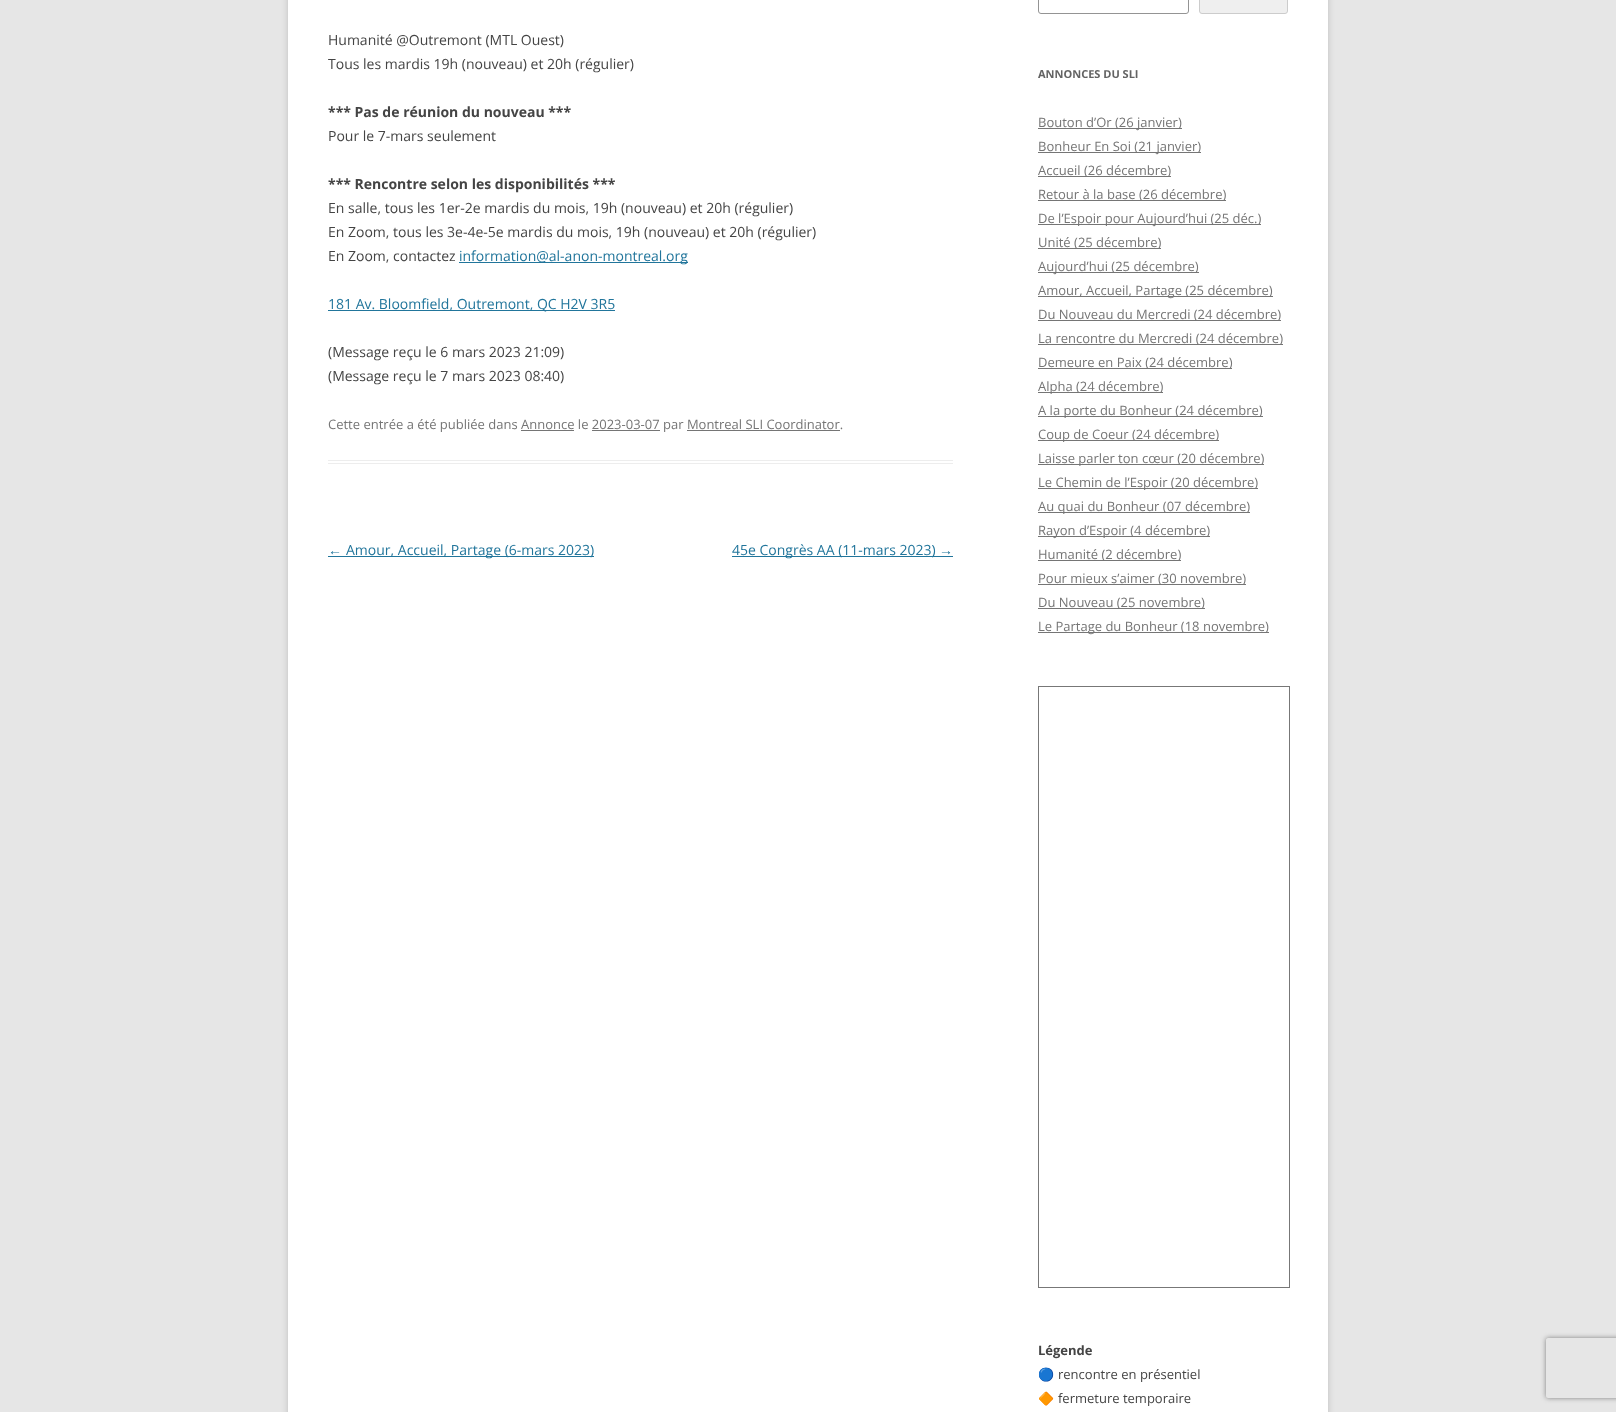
<svg xmlns="http://www.w3.org/2000/svg" xmlns:xlink="http://www.w3.org/1999/xlink" width="1616" height="1412" viewBox="0 0 1616 1412">
<style>
.cls-1{font:14px Open Sans;fill:#444444}
.cls-2{font:bold 14px Open Sans;fill:#444444}
.cls-3{font:14px Open Sans;fill:#21759b}
.cls-4{font:13px Open Sans;fill:#757575}
.cls-5{font:14px Liberation Sans;fill:#21759b}
.cls-6{font:bold 11px Open Sans;fill:#636363}
.cls-7{font:bold 13px Open Sans;fill:#444444}
.cls-8{font:13px Noto Color Emoji;fill:#444444}
.cls-9{font:13px Open Sans;fill:#444444}
</style>
<defs>
<clipPath id="clip1"><path d="M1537 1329H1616V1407H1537ZM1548 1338H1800C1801 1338 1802 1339 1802 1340V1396C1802 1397 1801 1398 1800 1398H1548C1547 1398 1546 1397 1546 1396V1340C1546 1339 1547 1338 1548 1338Z" clip-rule="evenodd"/></clipPath>
</defs>
<rect width="100%" height="100%" fill="#e6e6e6"/>
<rect fill="#646464" fill-opacity="0.3" filter="blur(3px)" x="288" y="-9" width="1040" height="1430"/>
<rect fill="#ffffff" x="288" y="0" width="1040" height="1412"/>
<rect fill="#ededed" x="328" y="460" width="625" height="1"/>
<rect fill="#ededed" x="328" y="463" width="625" height="1"/>
<rect fill="#21759b" x="459" y="262" width="229" height="1"/>
<rect fill="#21759b" x="328" y="310" width="287" height="1"/>
<rect fill="#757575" x="521" y="430" width="53" height="1"/>
<rect fill="#757575" x="592" y="430" width="68" height="1"/>
<rect fill="#757575" x="687" y="430" width="153" height="1"/>
<rect fill="#21759b" x="328" y="556" width="266" height="1"/>
<rect fill="#21759b" x="732" y="556" width="221" height="1"/>
<rect fill="none" stroke="#949494" x="1038.5" y="-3.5" width="150" height="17" rx="2.5"/>
<rect fill="#efefef" stroke="#cccccc" x="1199.5" y="-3.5" width="88" height="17" rx="2.5"/>
<rect fill="#757575" x="1038" y="128" width="144" height="1"/>
<rect fill="#757575" x="1038" y="152" width="163" height="1"/>
<rect fill="#757575" x="1038" y="176" width="133" height="1"/>
<rect fill="#757575" x="1038" y="200" width="188" height="1"/>
<rect fill="#757575" x="1038" y="224" width="223" height="1"/>
<rect fill="#757575" x="1038" y="248" width="123" height="1"/>
<rect fill="#757575" x="1038" y="272" width="161" height="1"/>
<rect fill="#757575" x="1038" y="296" width="235" height="1"/>
<rect fill="#757575" x="1038" y="320" width="243" height="1"/>
<rect fill="#757575" x="1038" y="344" width="245" height="1"/>
<rect fill="#757575" x="1038" y="368" width="194" height="1"/>
<rect fill="#757575" x="1038" y="392" width="125" height="1"/>
<rect fill="#757575" x="1038" y="416" width="225" height="1"/>
<rect fill="#757575" x="1038" y="440" width="181" height="1"/>
<rect fill="#757575" x="1038" y="464" width="226" height="1"/>
<rect fill="#757575" x="1038" y="488" width="220" height="1"/>
<rect fill="#757575" x="1038" y="512" width="212" height="1"/>
<rect fill="#757575" x="1038" y="536" width="172" height="1"/>
<rect fill="#757575" x="1038" y="560" width="143" height="1"/>
<rect fill="#757575" x="1038" y="584" width="208" height="1"/>
<rect fill="#757575" x="1038" y="608" width="167" height="1"/>
<rect fill="#757575" x="1038" y="632" width="231" height="1"/>
<rect fill="none" stroke="#777777" x="1038.5" y="686.5" width="251" height="601"/>
<g clip-path="url(#clip1)">
<rect fill="#808080" filter="blur(2.5px)" x="1546" y="1338" width="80" height="60" rx="2"/>
</g>
<text class="cls-1"><tspan x="328" y="45">Humanité @Outremont (MTL Ouest)</tspan><tspan x="328" y="69">Tous les mardis 19h (nouveau) et 20h (régulier)</tspan></text>
<text class="cls-2" x="328" y="117">*** Pas de réunion du nouveau ***</text>
<text class="cls-1" x="328" y="141">Pour le 7-mars seulement</text>
<text class="cls-2" x="328" y="189">*** Rencontre selon les disponibilités ***</text>
<text class="cls-1"><tspan x="328" y="213">En salle, tous les 1er-2e mardis du mois, 19h (nouveau) et 20h (régulier)</tspan><tspan x="328" y="237">En Zoom, tous les 3e-4e-5e mardis du mois, 19h (nouveau) et 20h (régulier)</tspan><tspan x="328" y="261">En Zoom, contactez</tspan></text>
<text class="cls-3" x="459" y="261">information@al-anon-montreal.org</text>
<text class="cls-3" x="328" y="309">181 Av. Bloomfield, Outremont, QC H2V 3R5</text>
<text class="cls-1"><tspan x="328" y="357">(Message reçu le 6 mars 2023 21:09)</tspan><tspan x="328" y="381">(Message reçu le 7 mars 2023 08:40)</tspan></text>
<text class="cls-4" x="328" y="429">Cette entrée a été publiée dans Annonce le 2023-03-07 par Montreal SLI Coordinator.</text>
<text class="cls-5" x="328" y="555">←</text>
<text class="cls-3" x="346" y="555">Amour, Accueil, Partage (6-mars 2023)</text>
<text class="cls-3" x="732" y="555">45e Congrès AA (11-mars 2023)</text>
<text class="cls-5" x="939" y="555">→</text>
<text class="cls-6" x="1038" y="78">ANNONCES DU SLI</text>
<text class="cls-4"><tspan x="1038" y="127">Bouton d’Or (26 janvier)</tspan><tspan x="1038" y="151">Bonheur En Soi (21 janvier)</tspan><tspan x="1038" y="175">Accueil (26 décembre)</tspan><tspan x="1038" y="199">Retour à la base (26 décembre)</tspan><tspan x="1038" y="223">De l’Espoir pour Aujourd’hui (25 déc.)</tspan><tspan x="1038" y="247">Unité (25 décembre)</tspan><tspan x="1038" y="271">Aujourd’hui (25 décembre)</tspan><tspan x="1038" y="295">Amour, Accueil, Partage (25 décembre)</tspan><tspan x="1038" y="319">Du Nouveau du Mercredi (24 décembre)</tspan><tspan x="1038" y="343">La rencontre du Mercredi (24 décembre)</tspan><tspan x="1038" y="367">Demeure en Paix (24 décembre)</tspan><tspan x="1038" y="391">Alpha (24 décembre)</tspan><tspan x="1038" y="415">A la porte du Bonheur (24 décembre)</tspan><tspan x="1038" y="439">Coup de Coeur (24 décembre)</tspan><tspan x="1038" y="463">Laisse parler ton cœur (20 décembre)</tspan><tspan x="1038" y="487">Le Chemin de l’Espoir (20 décembre)</tspan><tspan x="1038" y="511">Au quai du Bonheur (07 décembre)</tspan><tspan x="1038" y="535">Rayon d’Espoir (4 décembre)</tspan><tspan x="1038" y="559">Humanité (2 décembre)</tspan><tspan x="1038" y="583">Pour mieux s’aimer (30 novembre)</tspan><tspan x="1038" y="607">Du Nouveau (25 novembre)</tspan><tspan x="1038" y="631">Le Partage du Bonheur (18 novembre)</tspan></text>
<text class="cls-7" x="1038" y="1355">Légende</text>
<text class="cls-8" x="1038" y="1379">🔵</text>
<text class="cls-9" x="1058" y="1379">rencontre en présentiel</text>
<text class="cls-8" x="1038" y="1403">🔶</text>
<text class="cls-9" x="1058" y="1403">fermeture temporaire</text>
</svg>
